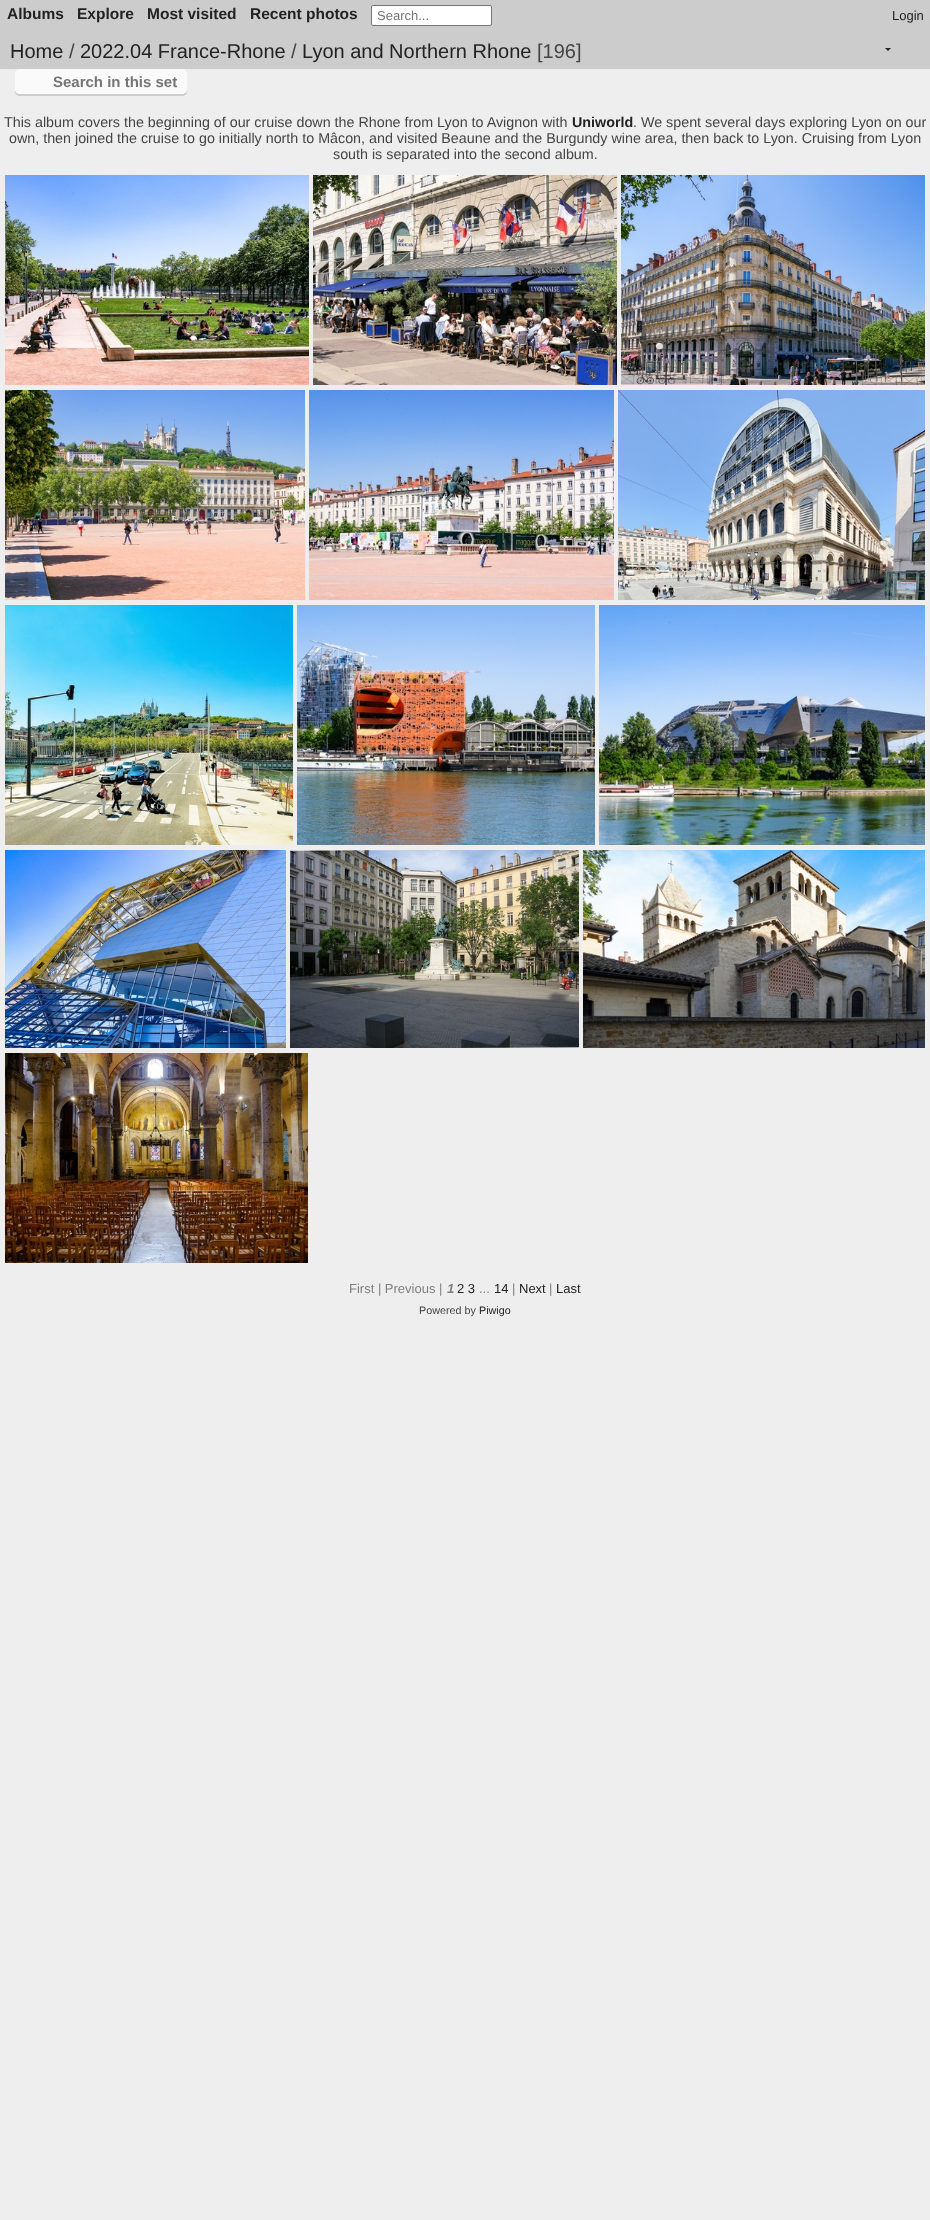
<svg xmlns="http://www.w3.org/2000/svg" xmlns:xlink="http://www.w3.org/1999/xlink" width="930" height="2220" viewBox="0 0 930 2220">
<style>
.cls-1{font:bold 15.5px Liberation Sans;fill:#222222}
.cls-2{font:13px Liberation Sans;fill:#757575}
.cls-3{font:13px Liberation Sans;fill:#222222}
.cls-4{font:20px Liberation Sans;fill:#222222}
.cls-5{font:20px Liberation Sans;fill:#444444}
.cls-6{font:bold 15px Liberation Sans;fill:#757575}
.cls-7{font:14.3px Liberation Sans;fill:#444444}
.cls-8{font:bold 14.3px Liberation Sans;fill:#222222}
.cls-9{font:13px Liberation Sans;fill:#808080}
.cls-10{font:italic bold 13px Liberation Sans;fill:#808080}
.cls-11{font:10.75px Liberation Sans;fill:#444444}
.cls-12{font:10.75px Liberation Sans;fill:#222222}
</style>
<rect width="100%" height="100%" fill="#eeeeee"/>
<rect fill="#cccccc" x="0" y="0" width="930" height="69"/>
<rect fill="#ffffff" stroke="#767676" x="371.5" y="5.5" width="120" height="20" rx="1.5"/>
<path fill="#222222" d="M885 48H891L888 51Z"/>
<path fill="#cdcdcd" d="M15 89V91C15 94 17 96 20 96H182C185 96 187 94 187 91V89C187 92 185 94 182 94H20C17 94 15 92 15 89Z"/>
<rect fill="#fafafa" x="15" y="69" width="172" height="25" rx="5"/>
<image xlink:href="image0.png" x="5" y="175" width="304" height="210"/>
<image xlink:href="image1.png" x="313" y="175" width="304" height="210"/>
<image xlink:href="image2.png" x="621" y="175" width="304" height="210"/>
<image xlink:href="image3.png" x="5" y="390" width="300" height="210"/>
<image xlink:href="image4.png" x="309" y="390" width="305" height="210"/>
<image xlink:href="image5.png" x="618" y="390" width="307" height="210"/>
<image xlink:href="image6.png" x="5" y="605" width="288" height="240"/>
<image xlink:href="image7.png" x="297" y="605" width="298" height="240"/>
<image xlink:href="image8.png" x="599" y="605" width="326" height="240"/>
<image xlink:href="image9.png" x="5" y="850" width="281" height="198"/>
<image xlink:href="image10.png" x="290" y="850" width="289" height="198"/>
<image xlink:href="image11.png" x="583" y="850" width="342" height="198"/>
<image xlink:href="image12.png" x="5" y="1053" width="303" height="210"/>
<text class="cls-1" x="7" y="19">Albums</text>
<text class="cls-1" x="77" y="19">Explore</text>
<text class="cls-1" x="147" y="19">Most visited</text>
<text class="cls-1" x="250" y="19">Recent photos</text>
<text class="cls-2" x="377" y="20">Search...</text>
<text class="cls-3" x="892" y="20">Login</text>
<text class="cls-4" x="10" y="58">Home</text>
<text class="cls-5" x="69" y="58">/</text>
<text class="cls-4" x="80" y="58">2022.04 France-Rhone</text>
<text class="cls-5" x="291" y="58">/</text>
<text class="cls-4" x="302" y="58">Lyon and Northern Rhone</text>
<text class="cls-5" x="537" y="58">[196]</text>
<text class="cls-6" x="53" y="87">Search in this set</text>
<text class="cls-7" x="4" y="127">This album covers the beginning of our cruise down the Rhone from Lyon to Avignon with</text>
<text class="cls-8" x="572" y="127">Uniworld</text>
<text class="cls-7" x="633" y="127">. We spent several days exploring Lyon on our</text>
<text class="cls-7" x="9" y="143">own, then joined the cruise to go initially north to Mâcon, and visited Beaune and the Burgundy wine area, then back to Lyon. Cruising from Lyon</text>
<text class="cls-7" x="333" y="159">south is separated into the second album.</text>
<text class="cls-9" x="349" y="1293">First | Previous |</text>
<text class="cls-10" x="447" y="1293">1</text>
<text class="cls-3" x="457" y="1293">2 3</text>
<text class="cls-9" x="479" y="1293">...</text>
<text class="cls-3" x="494" y="1293">14</text>
<text class="cls-9" x="512" y="1293">|</text>
<text class="cls-3" x="519" y="1293">Next</text>
<text class="cls-9" x="549" y="1293">|</text>
<text class="cls-3" x="556" y="1293">Last</text>
<text class="cls-11" x="419" y="1314">Powered by</text>
<text class="cls-12" x="479" y="1314">Piwigo</text>
</svg>
